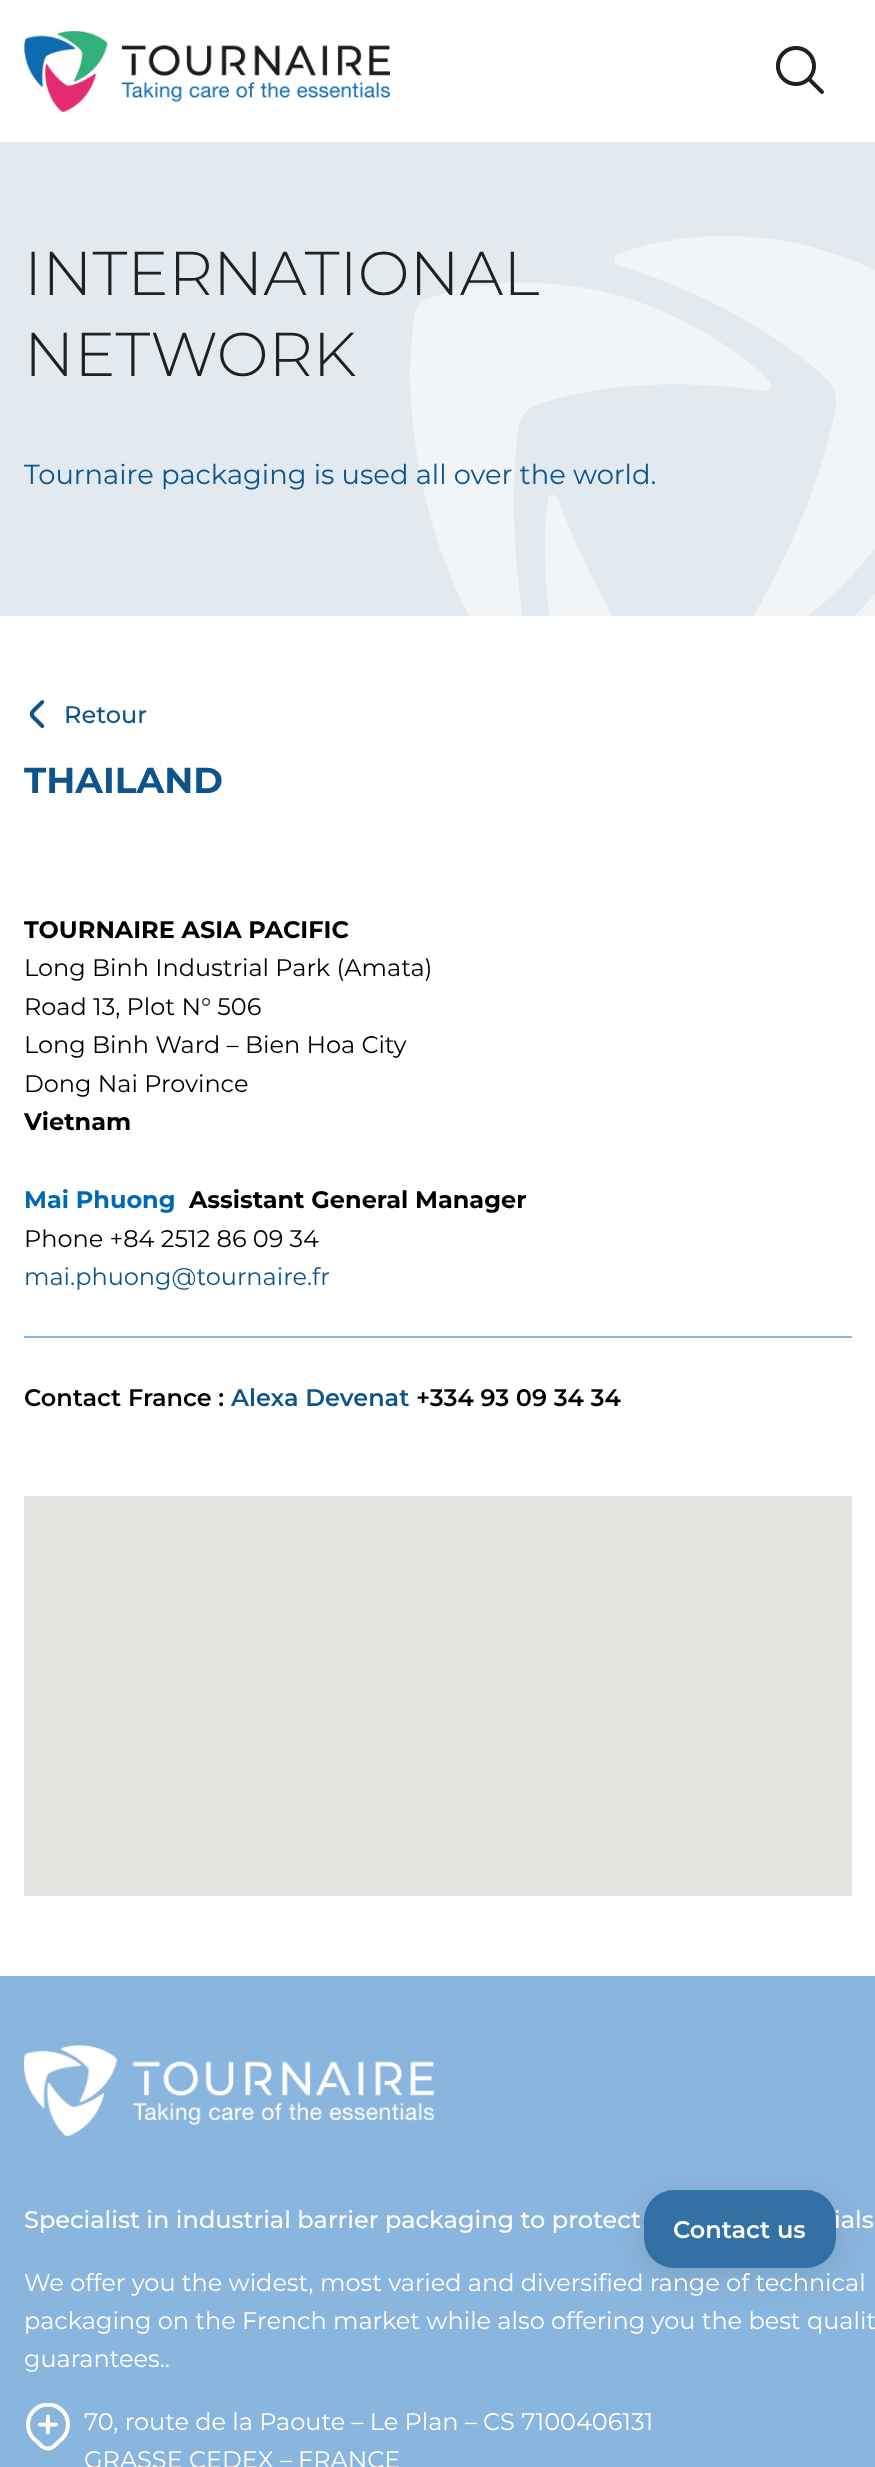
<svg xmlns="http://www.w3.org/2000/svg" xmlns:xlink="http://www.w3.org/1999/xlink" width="875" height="2467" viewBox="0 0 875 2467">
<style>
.cls-1{font:300 61.75px Montserrat;fill:#202020}
.cls-2{font:27.4px Montserrat;fill:#0e538a}
.cls-3{font:500 24px Montserrat;fill:#0e538a}
.cls-4{font:bold 36px Montserrat;fill:#0e538a}
.cls-5{font:bold 24px Montserrat;fill:#000000}
.cls-6{font:24px Montserrat;fill:#000000}
.cls-7{font:bold 24px Montserrat;fill:#0069b4}
.cls-8{font:24px Montserrat;fill:#0e538a}
.cls-9{font:600 24px Montserrat;fill:#000000}
.cls-10{font:600 24px Montserrat;fill:#0e538a}
.cls-11{font:500 24px Montserrat;fill:#ffffff}
.cls-12{font:24px Montserrat;fill:#ffffff}
.cls-13{font:600 24px Montserrat;fill:#ffffff}
</style>
<defs>
<clipPath id="clip1"><path d="M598 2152H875V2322H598ZM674 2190H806C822.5 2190 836 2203.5 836 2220V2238C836 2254.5 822.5 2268 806 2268H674C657.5 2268 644 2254.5 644 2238V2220C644 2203.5 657.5 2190 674 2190Z" clip-rule="evenodd"/></clipPath>
</defs>
<rect width="100%" height="100%" fill="#ffffff"/>
<image xlink:href="image0.png" x="24" y="31" width="366" height="81"/>
<image xlink:href="image1.png" x="776" y="46" width="48" height="48"/>
<rect fill="#e2eaf0" x="0" y="142" width="875" height="474"/>
<image xlink:href="image2.png" x="410" y="236" width="465" height="380"/>
<image xlink:href="image3.png" x="29" y="700" width="16" height="28"/>
<rect fill="#8ab5de" x="24" y="1336" width="828" height="2"/>
<rect fill="#e5e3df" x="24" y="1496" width="828" height="400"/>
<rect fill="#8ab5de" x="0" y="1976" width="875" height="491"/>
<image xlink:href="image4.png" x="24" y="2045" width="410" height="91"/>
<image xlink:href="image5.png" x="26" y="2403" width="44" height="48"/>
<g clip-path="url(#clip1)">
<rect fill="#000000" fill-opacity="0.1" filter="blur(15px)" x="644" y="2198" width="192" height="78" rx="30"/>
</g>
<text class="cls-1"><tspan x="24" y="295">INTERNATIONAL</tspan><tspan x="24" y="376">NETWORK</tspan></text>
<text class="cls-2" x="24" y="484">Tournaire packaging is used all over the world.</text>
<text class="cls-3" x="64" y="723">Retour</text>
<text class="cls-4" x="24" y="793">THAILAND</text>
<text class="cls-5" x="24" y="938">TOURNAIRE ASIA PACIFIC</text>
<text class="cls-6"><tspan x="24" y="976">Long Binh Industrial Park (Amata)</tspan><tspan x="24" y="1015">Road 13, Plot N° 506</tspan><tspan x="24" y="1053">Long Binh Ward – Bien Hoa City</tspan><tspan x="24" y="1092">Dong Nai Province</tspan></text>
<text class="cls-5" x="24" y="1130">Vietnam</text>
<text class="cls-7" x="24" y="1208">Mai Phuong</text>
<text class="cls-5" x="189" y="1208">Assistant General Manager</text>
<text class="cls-6" x="24" y="1247">Phone +84 2512 86 09 34</text>
<text class="cls-8" x="24" y="1285">mai.phuong@tournaire.fr</text>
<text class="cls-9" x="24" y="1406">Contact France :</text>
<text class="cls-10" x="231" y="1406">Alexa Devenat</text>
<text class="cls-9" x="416" y="1406">+334 93 09 34 34</text>
<text class="cls-11" x="24" y="2228">Specialist in industrial barrier packaging to protect</text>
<text class="cls-11" x="834" y="2228">ials</text>
<text class="cls-12"><tspan x="24" y="2291">We offer you the widest, most varied and diversified range of technical</tspan><tspan x="24" y="2329">packaging on the French market while also offering you the best qualit</tspan><tspan x="24" y="2367">guarantees..</tspan></text>
<text class="cls-12"><tspan x="84" y="2430">70, route de la Paoute – Le Plan – CS 7100406131</tspan><tspan x="84" y="2468">GRASSE CEDEX – FRANCE</tspan></text>
<rect fill="#0e538a" fill-opacity="0.7" x="644" y="2190" width="192" height="78" rx="30"/>
<text class="cls-13" x="673" y="2238">Contact us</text>
</svg>
